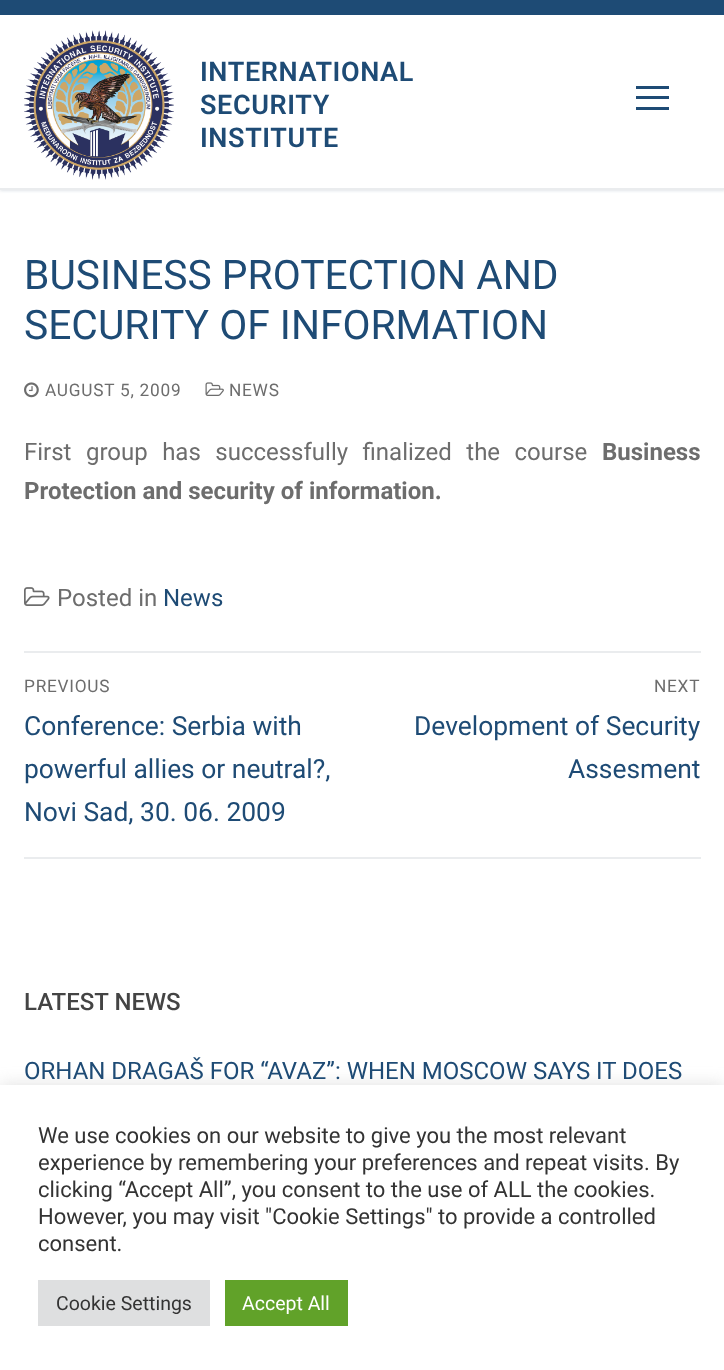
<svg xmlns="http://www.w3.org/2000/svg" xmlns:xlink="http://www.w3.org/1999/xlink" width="724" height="1370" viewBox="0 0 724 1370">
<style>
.cls-1{font:600 27px Roboto;letter-spacing:0.6px;fill:#1e4b75}
.cls-2{font:40.75px Roboto;fill:#1e4b75}
.cls-3{font:17.25px Roboto;letter-spacing:0.75px;fill:#6d6d6d}
.cls-4{font:24px Roboto;fill:#6d6d6d}
.cls-5{font:bold 24px Roboto;fill:#6d6d6d}
.cls-6{font:24px Roboto;fill:#1e4b75}
.cls-7{font:26.4px Roboto;fill:#1e4b75}
.cls-8{font:500 24px Roboto;fill:#444444}
.cls-9{font:22px Roboto;fill:#333333}
.cls-10{font:19.5px Roboto;fill:#333333}
.cls-11{font:19.5px Roboto;fill:#ffffff}
</style>
<defs>
<clipPath id="clip1"><rect x="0" y="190" width="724" height="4"/></clipPath>
</defs>
<rect width="100%" height="100%" fill="#ffffff"/>
<g clip-path="url(#clip1)">
<rect fill="#e1e5ea" filter="blur(1.5px)" x="0" y="2" width="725" height="189"/>
</g>
<rect fill="#1e4b75" x="0" y="0" width="724" height="15"/>
<rect fill="#eaecee" x="0" y="188" width="724" height="2"/>
<image xlink:href="image0.png" x="24" y="30" width="150" height="150"/>
<rect fill="#1e4b75" x="636" y="96" width="33" height="3"/>
<rect fill="#1e4b75" x="636" y="86" width="33" height="3"/>
<rect fill="#1e4b75" x="636" y="107" width="33" height="3"/>
<image xlink:href="image1.png" x="24" y="382" width="15" height="16"/>
<image xlink:href="image2.png" x="205" y="382" width="19" height="14"/>
<image xlink:href="image3.png" x="24" y="587" width="26" height="19"/>
<rect fill="#eaecee" x="24" y="651" width="677" height="2"/>
<rect fill="#eaecee" x="24" y="857" width="677" height="2"/>
<rect fill="#acabab" fill-opacity="0.3" filter="blur(7.5px)" x="0" y="1083" width="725" height="287"/>
<rect fill="#ffffff" x="0" y="1085" width="724" height="285"/>
<rect fill="#dedfe0" x="38" y="1280" width="172" height="46"/>
<rect fill="#61a229" x="225" y="1280" width="123" height="46"/>
<text class="cls-1"><tspan x="200" y="81">INTERNATIONAL</tspan><tspan x="200" y="114">SECURITY</tspan><tspan x="200" y="147">INSTITUTE</tspan></text>
<text class="cls-2"><tspan x="24" y="289">BUSINESS PROTECTION AND</tspan><tspan x="24" y="339">SECURITY OF INFORMATION</tspan></text>
<text class="cls-3" x="45" y="396">AUGUST 5, 2009</text>
<text class="cls-3" x="229" y="396">NEWS</text>
<text class="cls-4" x="24" y="460" word-spacing="8.5">First group has successfully finalized the course</text>
<text class="cls-5" x="602" y="460">Business</text>
<text class="cls-5" x="24" y="499">Protection and security of information.</text>
<text class="cls-4" x="57" y="606">Posted in</text>
<text class="cls-6" x="163" y="606">News</text>
<text class="cls-3" x="24" y="692">PREVIOUS</text>
<text class="cls-7"><tspan x="24" y="735">Conference: Serbia with</tspan><tspan x="24" y="778">powerful allies or neutral?,</tspan><tspan x="24" y="821">Novi Sad, 30. 06. 2009</tspan></text>
<text class="cls-3" x="654" y="692">NEXT</text>
<text class="cls-7" x="414" y="735">Development of Security</text>
<text class="cls-7" x="568" y="778">Assesment</text>
<text class="cls-8" x="24" y="1010">LATEST NEWS</text>
<text class="cls-6" x="24" y="1079">ORHAN DRAGAŠ FOR “AVAZ”: WHEN MOSCOW SAYS IT DOES</text>
<text class="cls-9"><tspan x="38" y="1143">We use cookies on our website to give you the most relevant</tspan><tspan x="38" y="1170">experience by remembering your preferences and repeat visits. By</tspan><tspan x="38" y="1197">clicking “Accept All”, you consent to the use of ALL the cookies.</tspan><tspan x="38" y="1224">However, you may visit "Cookie Settings" to provide a controlled</tspan><tspan x="38" y="1251">consent.</tspan></text>
<text class="cls-10" x="56" y="1310">Cookie Settings</text>
<text class="cls-11" x="242" y="1310">Accept All</text>
</svg>
